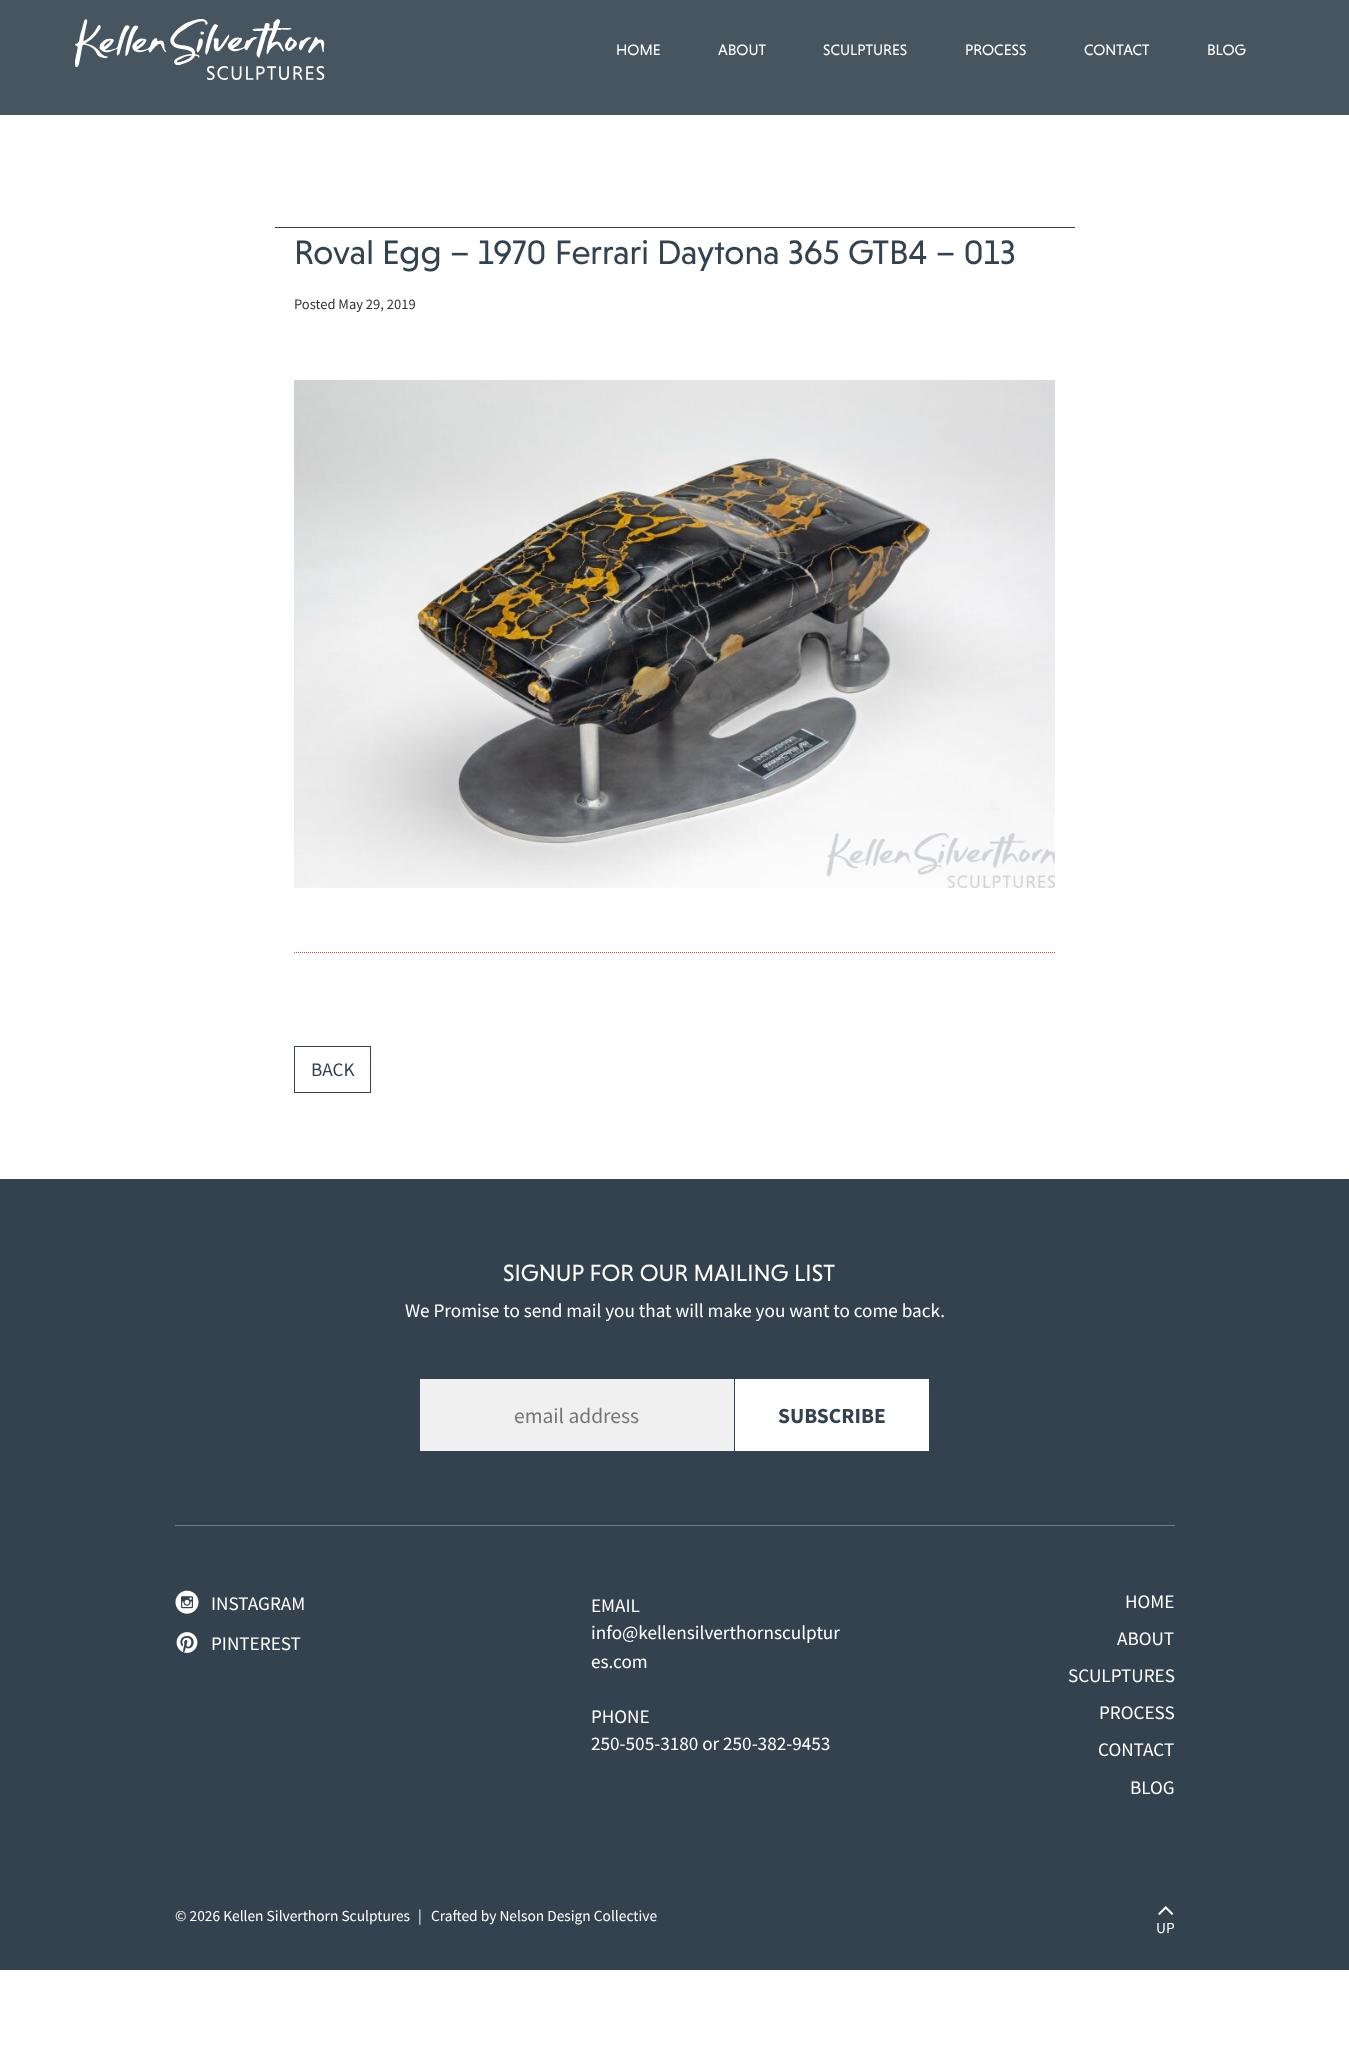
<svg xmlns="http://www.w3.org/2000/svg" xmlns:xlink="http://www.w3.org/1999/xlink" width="1349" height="2054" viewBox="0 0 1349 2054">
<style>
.cls-1{font:15.4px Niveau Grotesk;fill:#ffffff}
.cls-2{font:34.6px Niveau Grotesk;fill:#33424e}
.cls-3{font:14.5px Source Sans Pro;fill:#333333}
.cls-4{font:19.2px Source Sans Pro;fill:#33424e}
.cls-5{font:24px Niveau Grotesk;fill:#ffffff}
.cls-6{font:19.2px Source Sans Pro;fill:#ffffff}
.cls-7{font:21.5px Source Sans Pro;fill:#757575}
.cls-8{font:bold 21.5px Source Sans Pro;fill:#33424e}
.cls-9{font:15.4px Source Sans Pro;fill:#ffffff}
</style>
<rect width="100%" height="100%" fill="#ffffff"/>
<rect fill="#475560" x="0" y="0" width="1349" height="115"/>
<image xlink:href="image0.png" x="75" y="19" width="250" height="61"/>
<rect fill="#33424e" x="275" y="227" width="800" height="1"/>
<image xlink:href="image1.png" x="294" y="380" width="761" height="508"/>
<path fill="none" stroke="#e13849" stroke-dasharray="1 1" d="M294 952.5H1055"/>
<rect fill="none" stroke="#33424e" x="294.5" y="1046.5" width="76" height="46"/>
<rect fill="#33424e" x="0" y="1179" width="1349" height="791"/>
<rect fill="#707b83" x="175" y="1525" width="1000" height="1"/>
<rect fill="#f0f0f0" x="420" y="1379" width="314" height="72"/>
<rect fill="#ffffff" x="735" y="1379" width="194" height="72"/>
<image xlink:href="image2.png" x="175" y="1590" width="24" height="24"/>
<image xlink:href="image3.png" x="176" y="1632" width="22" height="21"/>
<image xlink:href="image4.png" x="1158" y="1906" width="16" height="9"/>
<text class="cls-1" x="616" y="55">HOME</text>
<text class="cls-1" x="718" y="55">ABOUT</text>
<text class="cls-1" x="823" y="55">SCULPTURES</text>
<text class="cls-1" x="965" y="55">PROCESS</text>
<text class="cls-1" x="1084" y="55">CONTACT</text>
<text class="cls-1" x="1207" y="55">BLOG</text>
<text class="cls-2" x="294" y="264">Roval Egg – 1970 Ferrari Daytona 365 GTB4 – 013</text>
<text class="cls-3" x="294" y="309">Posted May 29, 2019</text>
<text class="cls-4" x="311" y="1076">BACK</text>
<text class="cls-5" x="503" y="1281">SIGNUP FOR OUR MAILING LIST</text>
<text class="cls-6" x="405" y="1317">We Promise to send mail you that will make you want to come back.</text>
<text class="cls-7" x="514" y="1423">email address</text>
<text class="cls-8" x="778" y="1423">SUBSCRIBE</text>
<text class="cls-6" x="211" y="1610">INSTAGRAM</text>
<text class="cls-6" x="211" y="1650">PINTEREST</text>
<text class="cls-6"><tspan x="591" y="1612">EMAIL</tspan><tspan x="591" y="1639">info@kellensilverthornsculptur</tspan><tspan x="591" y="1668">es.com</tspan></text>
<text class="cls-6"><tspan x="591" y="1723">PHONE</tspan><tspan x="591" y="1750">250-505-3180 or 250-382-9453</tspan></text>
<text class="cls-6" x="1125" y="1608">HOME</text>
<text class="cls-6" x="1117" y="1645">ABOUT</text>
<text class="cls-6" x="1068" y="1682">SCULPTURES</text>
<text class="cls-6" x="1099" y="1719">PROCESS</text>
<text class="cls-6" x="1098" y="1756">CONTACT</text>
<text class="cls-6" x="1130" y="1794">BLOG</text>
<text class="cls-9" x="175" y="1921">© 2026 Kellen Silverthorn Sculptures</text>
<text class="cls-9" x="418" y="1921">|</text>
<text class="cls-9" x="431" y="1921">Crafted by Nelson Design Collective</text>
<text class="cls-9" x="1156" y="1933">UP</text>
</svg>
